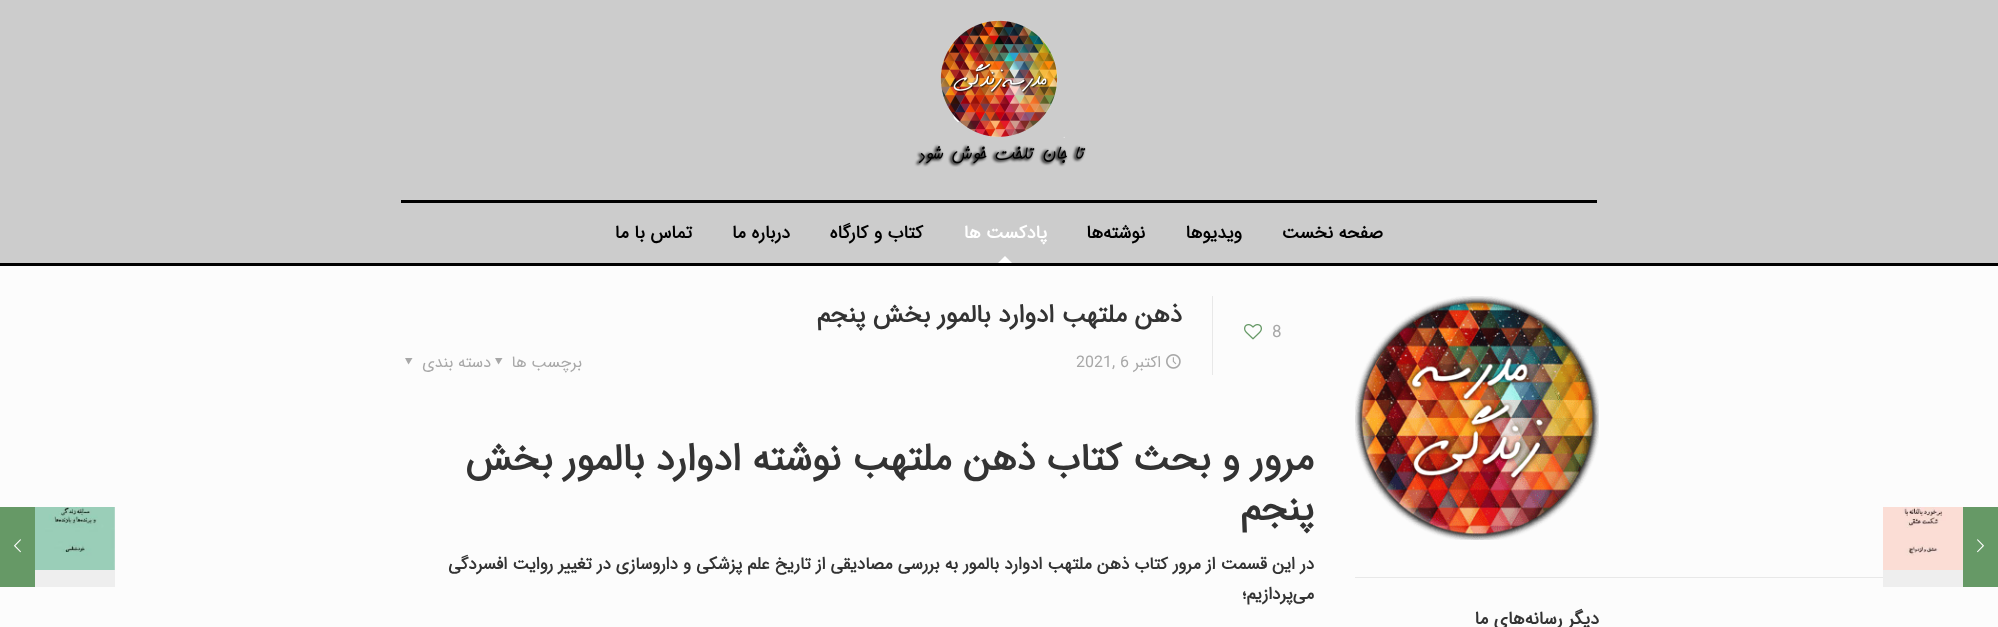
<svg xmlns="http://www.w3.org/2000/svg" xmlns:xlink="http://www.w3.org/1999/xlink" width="1998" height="627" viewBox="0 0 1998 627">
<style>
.cls-1{font:bold 18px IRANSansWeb;direction:rtl;fill:#000000}
.cls-2{font:bold 18px IRANSansWeb;direction:rtl;fill:#ffffff}
.cls-3{font:17px IRANSansWeb;fill:#a8a8a8}
.cls-4{font:bold 25px IRANSansWeb;direction:rtl;fill:#333333}
.cls-5{font:16px IRANSansWeb;direction:rtl;fill:#a8a8a8}
.cls-6{font:16px IRANSansWeb;fill:#a8a8a8}
.cls-7{font:bold 38px IRANSansWeb;direction:rtl;fill:#333333}
.cls-8{font:bold 17px IRANSansWeb;direction:rtl;fill:#333333}
.cls-9{font:bold 18px IRANSansWeb;direction:rtl;fill:#333333}
</style>
<rect width="100%" height="100%" fill="#fcfcfc"/>
<rect fill="#669966" x="1963" y="507" width="35" height="80"/>
<image xlink:href="image0.png" x="1977" y="539" width="7" height="14"/>
<rect fill="#eeeeee" x="1883" y="507" width="80" height="80"/>
<image xlink:href="image1.png" x="1883" y="507" width="80" height="63"/>
<rect fill="#cccccc" x="0" y="0" width="1998" height="263"/>
<rect fill="#000000" x="0" y="263" width="1998" height="3"/>
<rect fill="#000000" x="401" y="200" width="1196" height="3"/>
<image xlink:href="image2.png" x="914" y="20" width="172" height="147"/>
<path fill="#ffffff" d="M1012 263H998L1005 256Z"/>
<image xlink:href="image3.png" x="1244" y="324" width="18" height="16"/>
<rect fill="#e8e8e8" x="1212" y="296" width="1" height="79"/>
<image xlink:href="image4.png" x="1166" y="354" width="15" height="15"/>
<path fill="#a8a8a8" d="M502.5 358L498.5 364.5L495 358Z"/>
<path fill="#a8a8a8" d="M412.5 358L408.5 364.5L405 358Z"/>
<image xlink:href="image5.png" x="1355" y="296" width="244" height="244"/>
<rect fill="#e8e8e8" x="1355" y="577" width="528" height="1"/>
<rect fill="#eeeeee" x="35" y="507" width="80" height="80"/>
<image xlink:href="image6.png" x="35" y="507" width="80" height="63"/>
<rect fill="#669966" x="0" y="507" width="35" height="80"/>
<image xlink:href="image7.png" x="14" y="539" width="7" height="14"/>
<text class="cls-1" x="1383" y="238">صفحه نخست</text>
<text class="cls-1" x="1242" y="238">ویدیوها</text>
<text class="cls-1" x="1145" y="238">نوشته‌ها</text>
<text class="cls-2" x="1047" y="238">پادکست ها</text>
<text class="cls-1" x="923" y="238">کتاب و کارگاه</text>
<text class="cls-1" x="790" y="238">درباره ما</text>
<text class="cls-1" x="692" y="238">تماس با ما</text>
<text class="cls-3" x="1272" y="337">8</text>
<text class="cls-4" x="1182" y="322">ذهن ملتهب ادوارد بالمور بخش پنجم</text>
<text class="cls-5" x="1161" y="367">اکتبر</text>
<text class="cls-6" x="1076" y="367">2021, 6</text>
<text class="cls-5" x="582" y="367">برچسب ها</text>
<text class="cls-5" x="491" y="367">دسته بندی</text>
<text class="cls-7"><tspan x="1314" y="470">مرور و بحث کتاب ذهن ملتهب نوشته ادوارد بالمور بخش</tspan><tspan x="1314" y="520">پنجم</tspan></text>
<text class="cls-8"><tspan x="1314" y="569">در این قسمت از مرور کتاب ذهن ملتهب ادوارد بالمور به بررسی مصادیقی از تاریخ علم پزشکی و داروسازی در تغییر روایت افسردگی</tspan><tspan x="1314" y="599">می‌پردازیم؛</tspan></text>
<text class="cls-9" x="1599" y="624">دیگر رسانه‌های ما</text>
</svg>
